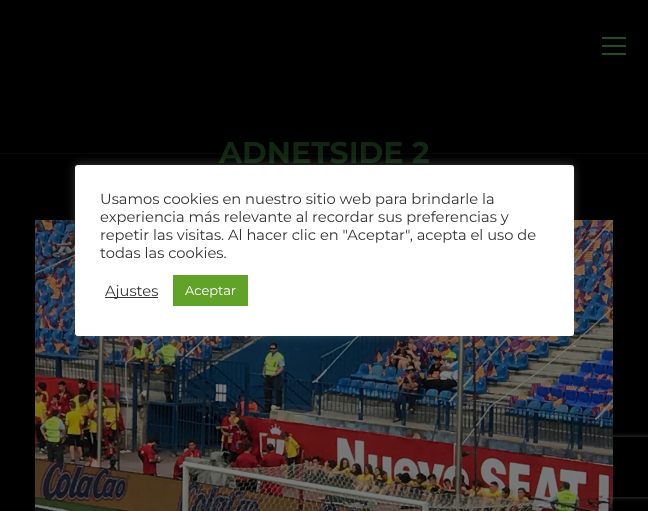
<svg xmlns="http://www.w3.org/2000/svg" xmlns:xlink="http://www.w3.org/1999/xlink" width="648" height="511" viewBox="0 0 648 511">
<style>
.cls-1{font:bold 30px Montserrat;fill:#102711}
.cls-2{font:14.7px Montserrat;fill:#333333}
.cls-3{font:13px Montserrat;fill:#ffffff}
</style>
<defs>
<clipPath id="clip1"><path d="M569 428H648V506H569ZM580 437H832C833 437 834 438 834 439V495C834 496 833 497 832 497H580C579 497 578 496 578 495V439C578 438 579 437 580 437Z" clip-rule="evenodd"/></clipPath>
</defs>
<rect width="100%" height="100%" fill="#000000"/>
<rect fill="#204d21" x="602" y="37" width="24" height="2"/>
<rect fill="#204d21" x="602" y="45" width="24" height="2"/>
<rect fill="#204d21" x="602" y="53" width="24" height="2"/>
<g clip-path="url(#clip1)">
<rect fill="#404040" filter="blur(2.5px)" x="578" y="437" width="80" height="60" rx="2"/>
</g>
<image xlink:href="image0.png" x="35" y="220" width="578" height="291"/>
<text class="cls-1" x="219" y="163">ADNETSIDE 2</text>
<rect fill="#204d21" fill-opacity="0.15" x="0" y="153" width="648" height="1"/>
<rect fill="#acabab" fill-opacity="0.3" filter="blur(5px)" x="75" y="164" width="499" height="171" rx="3"/>
<rect fill="#ffffff" x="75" y="165" width="499" height="171" rx="3"/>
<text class="cls-2"><tspan x="100" y="204">Usamos cookies en nuestro sitio web para brindarle la</tspan><tspan x="100" y="222">experiencia más relevante al recordar sus preferencias y</tspan><tspan x="100" y="240">repetir las visitas. Al hacer clic en "Aceptar", acepta el uso de</tspan><tspan x="100" y="258">todas las cookies.</tspan></text>
<rect fill="#333333" x="105" y="297" width="53" height="1"/>
<text class="cls-2" x="105" y="296">Ajustes</text>
<rect fill="#61a229" x="173" y="275" width="75" height="31"/>
<text class="cls-3" x="185" y="295">Aceptar</text>
</svg>
